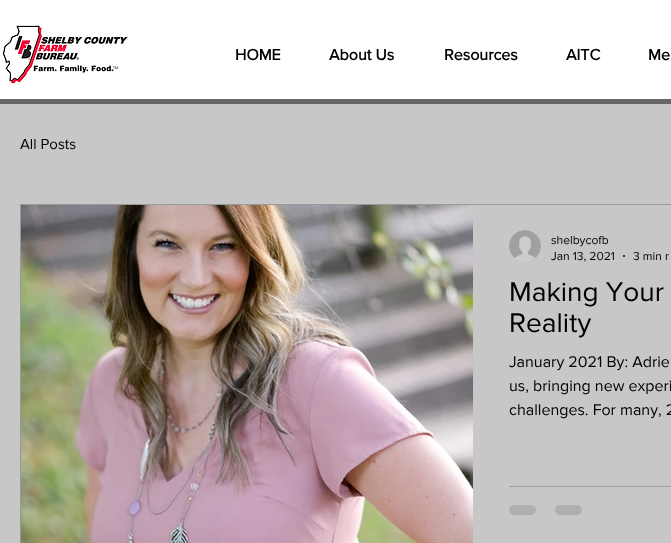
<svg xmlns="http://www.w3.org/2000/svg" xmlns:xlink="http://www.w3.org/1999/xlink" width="671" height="543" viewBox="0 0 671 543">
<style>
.cls-1{font:bold 16px 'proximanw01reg';fill:#000000}
.cls-2{font:15px 'proximanw01reg';fill:#000000}
.cls-3{font:12px 'proximanw01reg';fill:#000000}
.cls-4{font:28px 'proximanw01reg';fill:#000000}
.cls-5{font:16px 'proximanw01reg';fill:#000000}
</style>
<rect width="100%" height="100%" fill="#c7c7c7"/>
<rect fill="#ffffff" x="0" y="0" width="671" height="99"/>
<rect fill="#666666" x="0" y="99" width="671" height="5"/>
<image xlink:href="image0.png" x="2" y="25" width="126" height="59"/>
<rect fill="none" stroke="#999999" x="20.5" y="204.5" width="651" height="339"/>
<image xlink:href="image1.png" x="21" y="205" width="452" height="338"/>
<image xlink:href="image2.png" x="509" y="230" width="32" height="32"/>
<circle fill="#000000" cx="624" cy="256" r="1"/>
<rect fill="#9f9f9f" x="509" y="486" width="162" height="1"/>
<rect fill="#afafaf" x="509" y="505" width="27" height="10" rx="5"/>
<rect fill="#afafaf" x="555" y="505" width="27" height="10" rx="5"/>
<text class="cls-1" x="235" y="60">HOME</text>
<text class="cls-1" x="329" y="60">About Us</text>
<text class="cls-1" x="444" y="60">Resources</text>
<text class="cls-1" x="566" y="60">AITC</text>
<text class="cls-1" x="648" y="60">Me</text>
<text class="cls-2" x="20" y="149">All Posts</text>
<text class="cls-3"><tspan x="551" y="244">shelbycofb</tspan><tspan x="551" y="260">Jan 13, 2021</tspan></text>
<text class="cls-3" x="633" y="260">3 min r</text>
<text class="cls-4"><tspan x="509" y="301">Making Your</tspan><tspan x="509" y="332">Reality</tspan></text>
<text class="cls-5"><tspan x="509" y="367">January 2021 By: Adrie</tspan><tspan x="509" y="391">us, bringing new experi</tspan><tspan x="509" y="415">challenges. For many, 2</tspan></text>
</svg>
